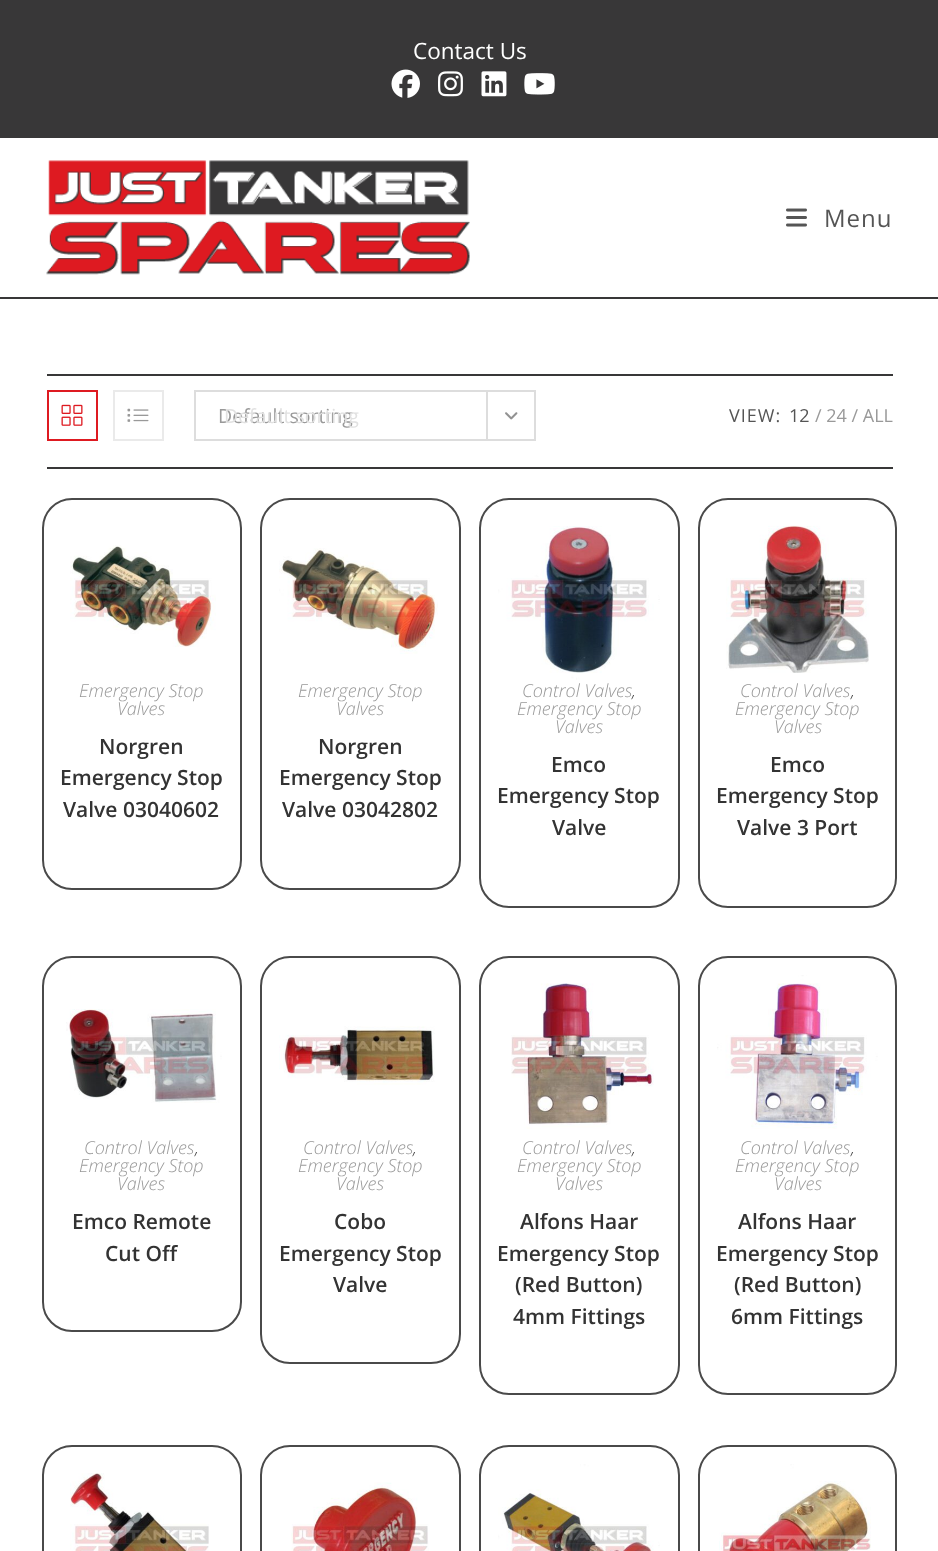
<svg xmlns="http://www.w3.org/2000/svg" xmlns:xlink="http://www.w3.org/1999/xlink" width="938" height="1551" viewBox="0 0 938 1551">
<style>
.cls-1{font:22.5px Open Sans;fill:#ffffff}
.cls-2{font:24px Open Sans;letter-spacing:1px;fill:#555555}
.cls-3{font:19.5px Open Sans;fill:#999999}
.cls-4{font:19.5px Open Sans;fill:#e1e1e1}
.cls-5{font:18px Open Sans;letter-spacing:1px;fill:#555555}
.cls-6{font:18px Open Sans;fill:#555555}
.cls-7{font:18px Open Sans;fill:#999999}
.cls-8{font:italic 300 18px Open Sans;fill:#999999}
.cls-9{font:600 21px Open Sans;fill:#333333}
.cls-10{font:italic 300 18px Open Sans;fill:#4a4a4a}
</style>
<rect width="100%" height="100%" fill="#ffffff"/>
<rect fill="#383738" x="0" y="0" width="938" height="138"/>
<image xlink:href="image0.png" x="391" y="69" width="29" height="29"/>
<image xlink:href="image1.png" x="438" y="71" width="25" height="26"/>
<image xlink:href="image2.png" x="481" y="71" width="26" height="26"/>
<image xlink:href="image3.png" x="524" y="73" width="31" height="22"/>
<rect fill="#383738" x="0" y="297" width="938" height="2"/>
<image xlink:href="image4.png" x="46" y="160" width="424" height="115"/>
<image xlink:href="image5.png" x="786" y="208" width="21" height="19"/>
<rect fill="#383738" x="47" y="374" width="846" height="2"/>
<rect fill="#383738" x="47" y="467" width="846" height="2"/>
<rect fill="none" stroke="#de1a21" stroke-width="2" x="48" y="391" width="49" height="49"/>
<image xlink:href="image6.png" x="61" y="404" width="22" height="22"/>
<rect fill="none" stroke="#eaeaea" stroke-width="2" x="114" y="391" width="49" height="49"/>
<image xlink:href="image7.png" x="127" y="408" width="22" height="14"/>
<rect fill="none" stroke="#dddddd" stroke-width="2" x="195" y="391" width="340" height="49"/>
<rect fill="#dddddd" x="486" y="392" width="2" height="48"/>
<image xlink:href="image8.png" x="505" y="412" width="13" height="8"/>
<rect fill="none" stroke="#4a4a4a" stroke-width="2" x="43" y="499" width="198" height="390" rx="29"/>
<image xlink:href="image9.png" x="70" y="545" width="146" height="102"/>
<rect fill="none" stroke="#4a4a4a" stroke-width="2" x="261" y="499" width="199" height="390" rx="29"/>
<image xlink:href="image10.png" x="279" y="548" width="159" height="106"/>
<rect fill="none" stroke="#4a4a4a" stroke-width="2" x="480" y="499" width="199" height="408" rx="29"/>
<image xlink:href="image11.png" x="498" y="526" width="162" height="154"/>
<rect fill="none" stroke="#4a4a4a" stroke-width="2" x="699" y="499" width="197" height="408" rx="29"/>
<image xlink:href="image12.png" x="726" y="525" width="143" height="148"/>
<rect fill="none" stroke="#4a4a4a" stroke-width="2" x="43" y="957" width="198" height="374" rx="29"/>
<image xlink:href="image13.png" x="66" y="1009" width="156" height="94"/>
<rect fill="none" stroke="#4a4a4a" stroke-width="2" x="261" y="957" width="199" height="406" rx="29"/>
<image xlink:href="image14.png" x="279" y="1026" width="156" height="59"/>
<rect fill="none" stroke="#4a4a4a" stroke-width="2" x="480" y="957" width="199" height="437" rx="29"/>
<image xlink:href="image15.png" x="511" y="983" width="143" height="146"/>
<rect fill="none" stroke="#4a4a4a" stroke-width="2" x="699" y="957" width="197" height="437" rx="29"/>
<image xlink:href="image16.png" x="717" y="975" width="161" height="154"/>
<rect fill="none" stroke="#4a4a4a" stroke-width="2" x="43" y="1446" width="198" height="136" rx="29"/>
<image xlink:href="image17.png" x="70" y="1473" width="139" height="78"/>
<rect fill="none" stroke="#4a4a4a" stroke-width="2" x="261" y="1446" width="199" height="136" rx="29"/>
<image xlink:href="image18.png" x="291" y="1482" width="138" height="69"/>
<rect fill="none" stroke="#4a4a4a" stroke-width="2" x="480" y="1446" width="199" height="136" rx="29"/>
<image xlink:href="image19.png" x="498" y="1464" width="162" height="87"/>
<rect fill="none" stroke="#4a4a4a" stroke-width="2" x="699" y="1446" width="197" height="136" rx="29"/>
<image xlink:href="image20.png" x="719" y="1464" width="152" height="87"/>
<text class="cls-1" x="413" y="59">Contact Us</text>
<text class="cls-2" x="824" y="227">Menu</text>
<text class="cls-3" x="218" y="423">Default sorting</text>
<text class="cls-4" x="224" y="423">Default sorting</text>
<text class="cls-5" x="729" y="422">VIEW:</text>
<text class="cls-6" x="789" y="422">12</text>
<text class="cls-7" x="815" y="422">/ 24 / ALL</text>
<text class="cls-8" x="79" y="697">Emergency Stop</text>
<text class="cls-8" x="117" y="715">Valves</text>
<text class="cls-9" x="99" y="754">Norgren</text>
<text class="cls-9" x="60" y="785">Emergency Stop</text>
<text class="cls-9" x="63" y="817">Valve 03040602</text>
<text class="cls-8" x="298" y="697">Emergency Stop</text>
<text class="cls-8" x="336" y="715">Valves</text>
<text class="cls-9" x="318" y="754">Norgren</text>
<text class="cls-9" x="279" y="785">Emergency Stop</text>
<text class="cls-9" x="282" y="817">Valve 03042802</text>
<text class="cls-8" x="522" y="697">Control Valves</text>
<text class="cls-10" x="632" y="697">,</text>
<text class="cls-8" x="517" y="715">Emergency Stop</text>
<text class="cls-8" x="555" y="733">Valves</text>
<text class="cls-9" x="551" y="772">Emco</text>
<text class="cls-9" x="497" y="803">Emergency Stop</text>
<text class="cls-9" x="552" y="835">Valve</text>
<text class="cls-8" x="740" y="697">Control Valves</text>
<text class="cls-10" x="851" y="697">,</text>
<text class="cls-8" x="735" y="715">Emergency Stop</text>
<text class="cls-8" x="774" y="733">Valves</text>
<text class="cls-9" x="770" y="772">Emco</text>
<text class="cls-9" x="716" y="803">Emergency Stop</text>
<text class="cls-9" x="737" y="835">Valve 3 Port</text>
<text class="cls-8" x="84" y="1154">Control Valves</text>
<text class="cls-10" x="195" y="1154">,</text>
<text class="cls-8" x="79" y="1172">Emergency Stop</text>
<text class="cls-8" x="117" y="1190">Valves</text>
<text class="cls-9" x="72" y="1229">Emco Remote</text>
<text class="cls-9" x="105" y="1261">Cut Off</text>
<text class="cls-8" x="303" y="1154">Control Valves</text>
<text class="cls-10" x="413" y="1154">,</text>
<text class="cls-8" x="298" y="1172">Emergency Stop</text>
<text class="cls-8" x="336" y="1190">Valves</text>
<text class="cls-9" x="334" y="1229">Cobo</text>
<text class="cls-9" x="279" y="1261">Emergency Stop</text>
<text class="cls-9" x="333" y="1292">Valve</text>
<text class="cls-8" x="522" y="1154">Control Valves</text>
<text class="cls-10" x="632" y="1154">,</text>
<text class="cls-8" x="517" y="1172">Emergency Stop</text>
<text class="cls-8" x="555" y="1190">Valves</text>
<text class="cls-9" x="520" y="1229">Alfons Haar</text>
<text class="cls-9" x="497" y="1261">Emergency Stop</text>
<text class="cls-9" x="515" y="1292">(Red Button)</text>
<text class="cls-9" x="513" y="1324">4mm Fittings</text>
<text class="cls-8" x="740" y="1154">Control Valves</text>
<text class="cls-10" x="851" y="1154">,</text>
<text class="cls-8" x="735" y="1172">Emergency Stop</text>
<text class="cls-8" x="774" y="1190">Valves</text>
<text class="cls-9" x="738" y="1229">Alfons Haar</text>
<text class="cls-9" x="716" y="1261">Emergency Stop</text>
<text class="cls-9" x="734" y="1292">(Red Button)</text>
<text class="cls-9" x="731" y="1324">6mm Fittings</text>
</svg>
